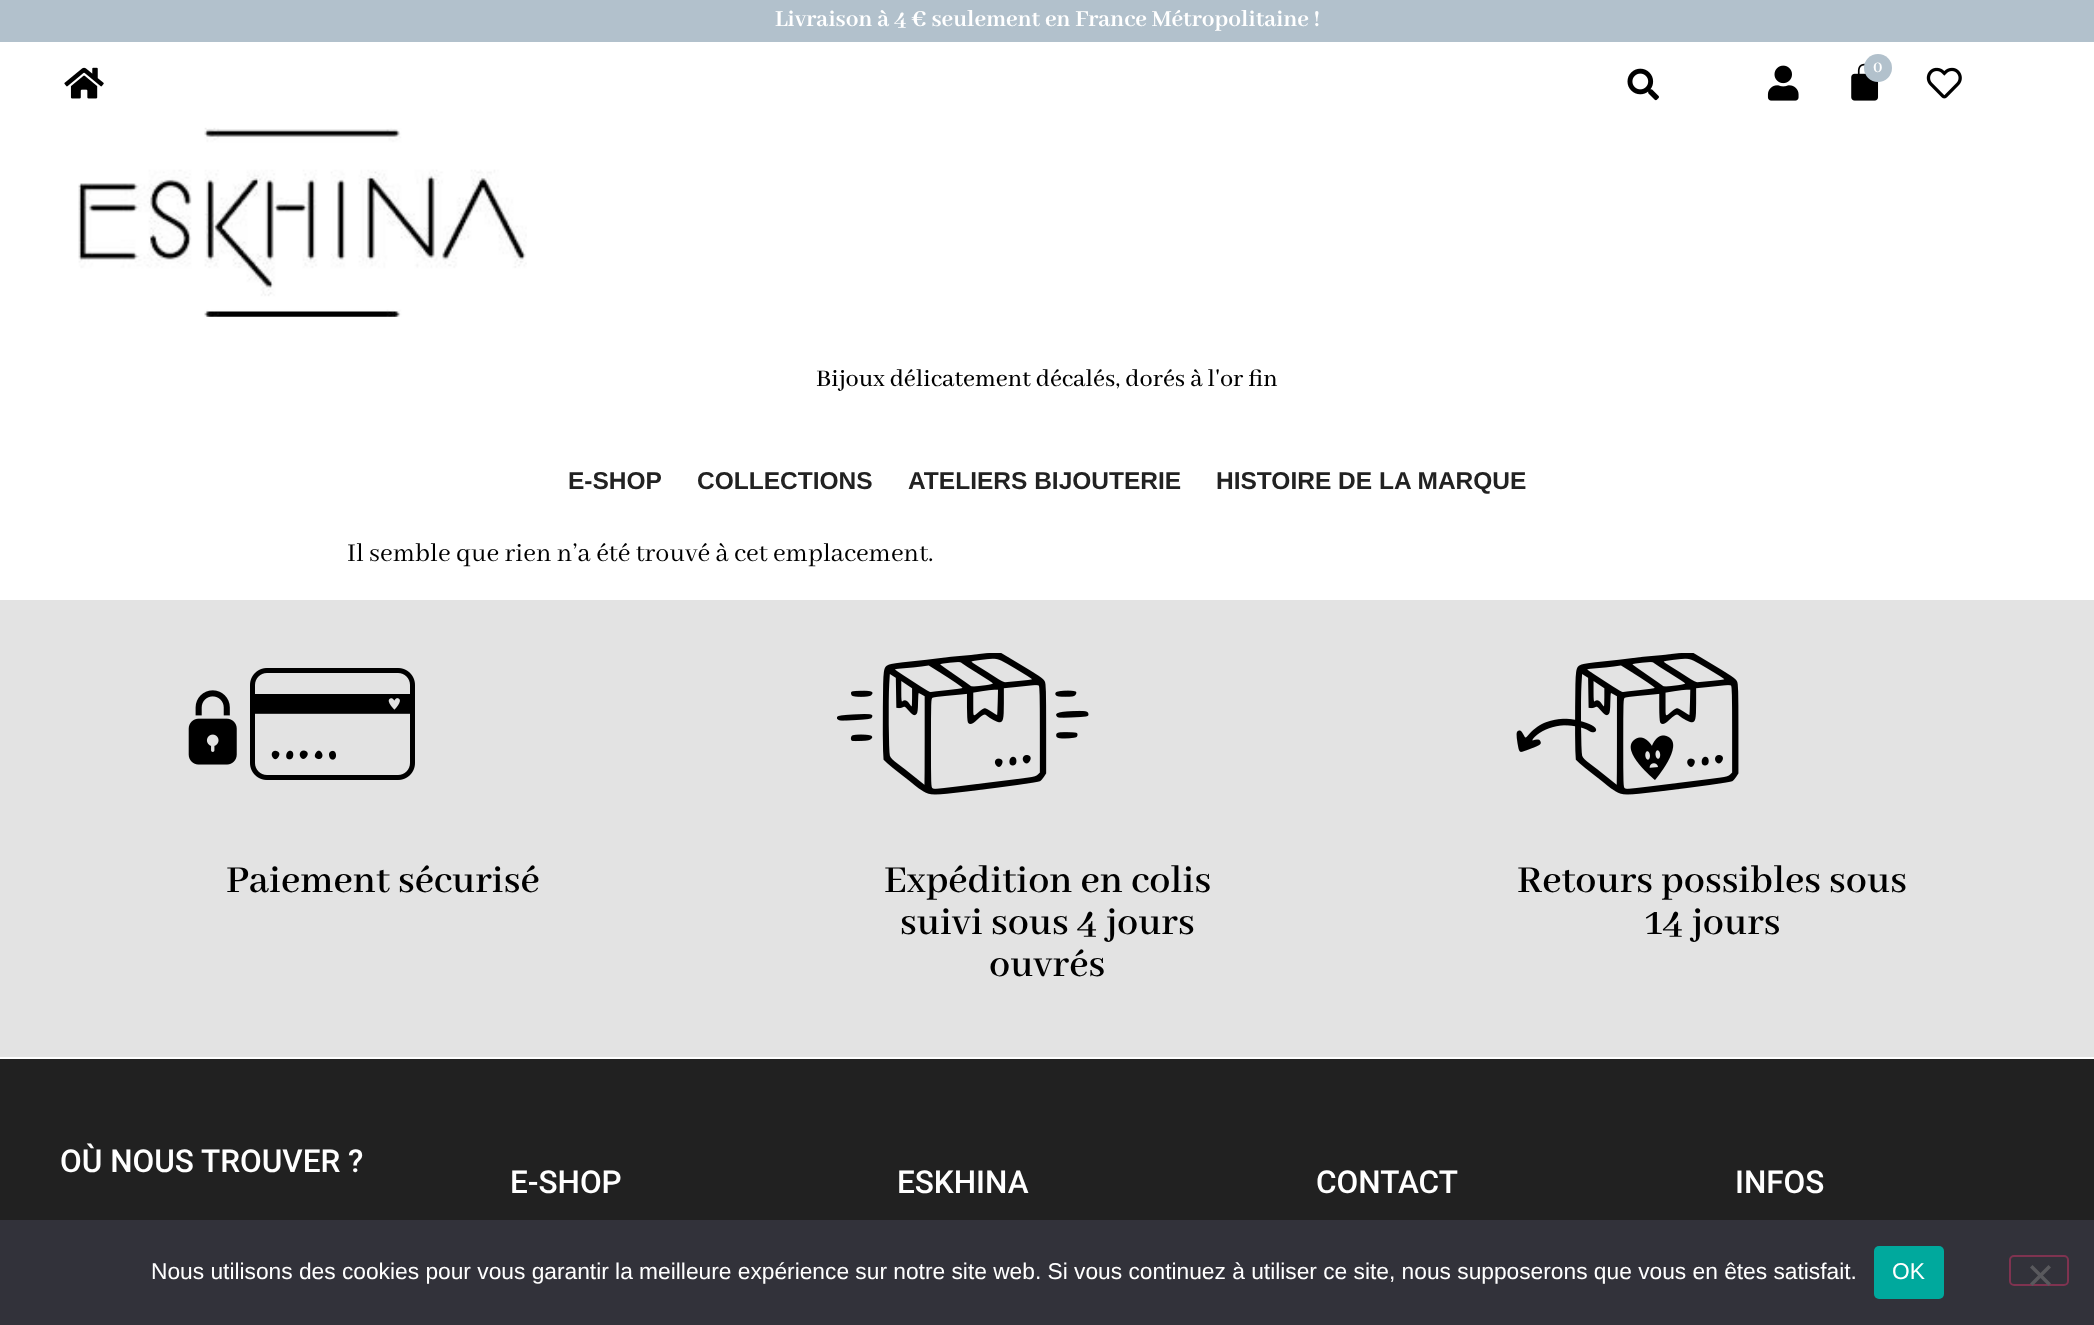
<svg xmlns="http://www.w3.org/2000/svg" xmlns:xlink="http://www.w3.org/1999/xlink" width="2094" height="1325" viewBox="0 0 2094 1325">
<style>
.cls-1{font:bold 25.2px Abhaya Libre;fill:#ffffff}
.cls-2{font:600 18px Abhaya Libre;fill:#ffffff}
.cls-3{font:500 26.25px Abhaya Libre;fill:#000000}
.cls-4{font:bold 24.5px Liberation Sans;fill:#222222}
.cls-5{font:28px Abhaya Libre;fill:#000000}
.cls-6{font:600 42px Abhaya Libre;fill:#000000}
.cls-7{font:500 31.5px Roboto;fill:#ffffff}
.cls-8{font:22.75px Liberation Sans;fill:#ffffff}
</style>
<rect width="100%" height="100%" fill="#ffffff"/>
<rect fill="#b2c1cc" x="0" y="0" width="2094" height="42"/>
<image xlink:href="image0.png" x="64" y="67" width="40" height="32"/>
<image xlink:href="image1.png" x="1627" y="68" width="32" height="33"/>
<image xlink:href="image2.png" x="1767" y="65" width="32" height="36"/>
<image xlink:href="image3.png" x="1851" y="63" width="28" height="38"/>
<circle fill="#b2c1cc" cx="1878" cy="68" r="14"/>
<image xlink:href="image4.png" x="1926" y="67" width="36" height="32"/>
<image xlink:href="image5.png" x="78" y="127" width="449" height="190"/>
<rect fill="#e3e3e3" x="0" y="600" width="2094" height="457"/>
<image xlink:href="image6.png" x="188" y="668" width="227" height="112"/>
<image xlink:href="image7.png" x="837" y="653" width="252" height="142"/>
<image xlink:href="image8.png" x="1516" y="653" width="223" height="142"/>
<rect fill="#212121" x="0" y="1059" width="2094" height="161"/>
<rect fill="#32323a" x="0" y="1220" width="2094" height="105"/>
<rect fill="#00a99d" x="1874" y="1246" width="70" height="53" rx="5"/>
<rect fill="none" stroke="#7f3350" stroke-width="2" x="2010" y="1256" width="58" height="29" rx="4"/>
<path fill="#59595d" d="M2048.5 1265L2051 1267.5L2032.5 1286L2030 1283.5Z"/>
<path fill="#59595d" d="M2030 1267.5L2032.5 1265L2051 1283.5L2048.5 1286Z"/>
<text class="cls-1" x="775" y="26">Livraison à 4 € seulement en France Métropolitaine !</text>
<text class="cls-2" x="1873" y="72">0</text>
<text class="cls-3" x="816" y="386">Bijoux délicatement décalés, dorés à l'or fin</text>
<text class="cls-4" x="568" y="489">E-SHOP</text>
<text class="cls-4" x="697" y="489">COLLECTIONS</text>
<text class="cls-4" x="908" y="489">ATELIERS BIJOUTERIE</text>
<text class="cls-4" x="1216" y="489">HISTOIRE DE LA MARQUE</text>
<text class="cls-5" x="347" y="561">Il semble que rien n’a été trouvé à cet emplacement.</text>
<text class="cls-6" x="226" y="892">Paiement sécurisé</text>
<text class="cls-6" x="884" y="892">Expédition en colis</text>
<text class="cls-6" x="900" y="934">suivi sous 4 jours</text>
<text class="cls-6" x="989" y="976">ouvrés</text>
<text class="cls-6" x="1517" y="892">Retours possibles sous</text>
<text class="cls-6" x="1645" y="934">14 jours</text>
<text class="cls-7" x="60" y="1172">OÙ NOUS TROUVER ?</text>
<text class="cls-7" x="510" y="1193">E-SHOP</text>
<text class="cls-7" x="897" y="1193">ESKHINA</text>
<text class="cls-7" x="1316" y="1193">CONTACT</text>
<text class="cls-7" x="1735" y="1193">INFOS</text>
<text class="cls-8" x="151" y="1279">Nous utilisons des cookies pour vous garantir la meilleure expérience sur notre site web. Si vous continuez à utiliser ce site, nous supposerons que vous en êtes satisfait.</text>
<text class="cls-8" x="1892" y="1279">OK</text>
</svg>
